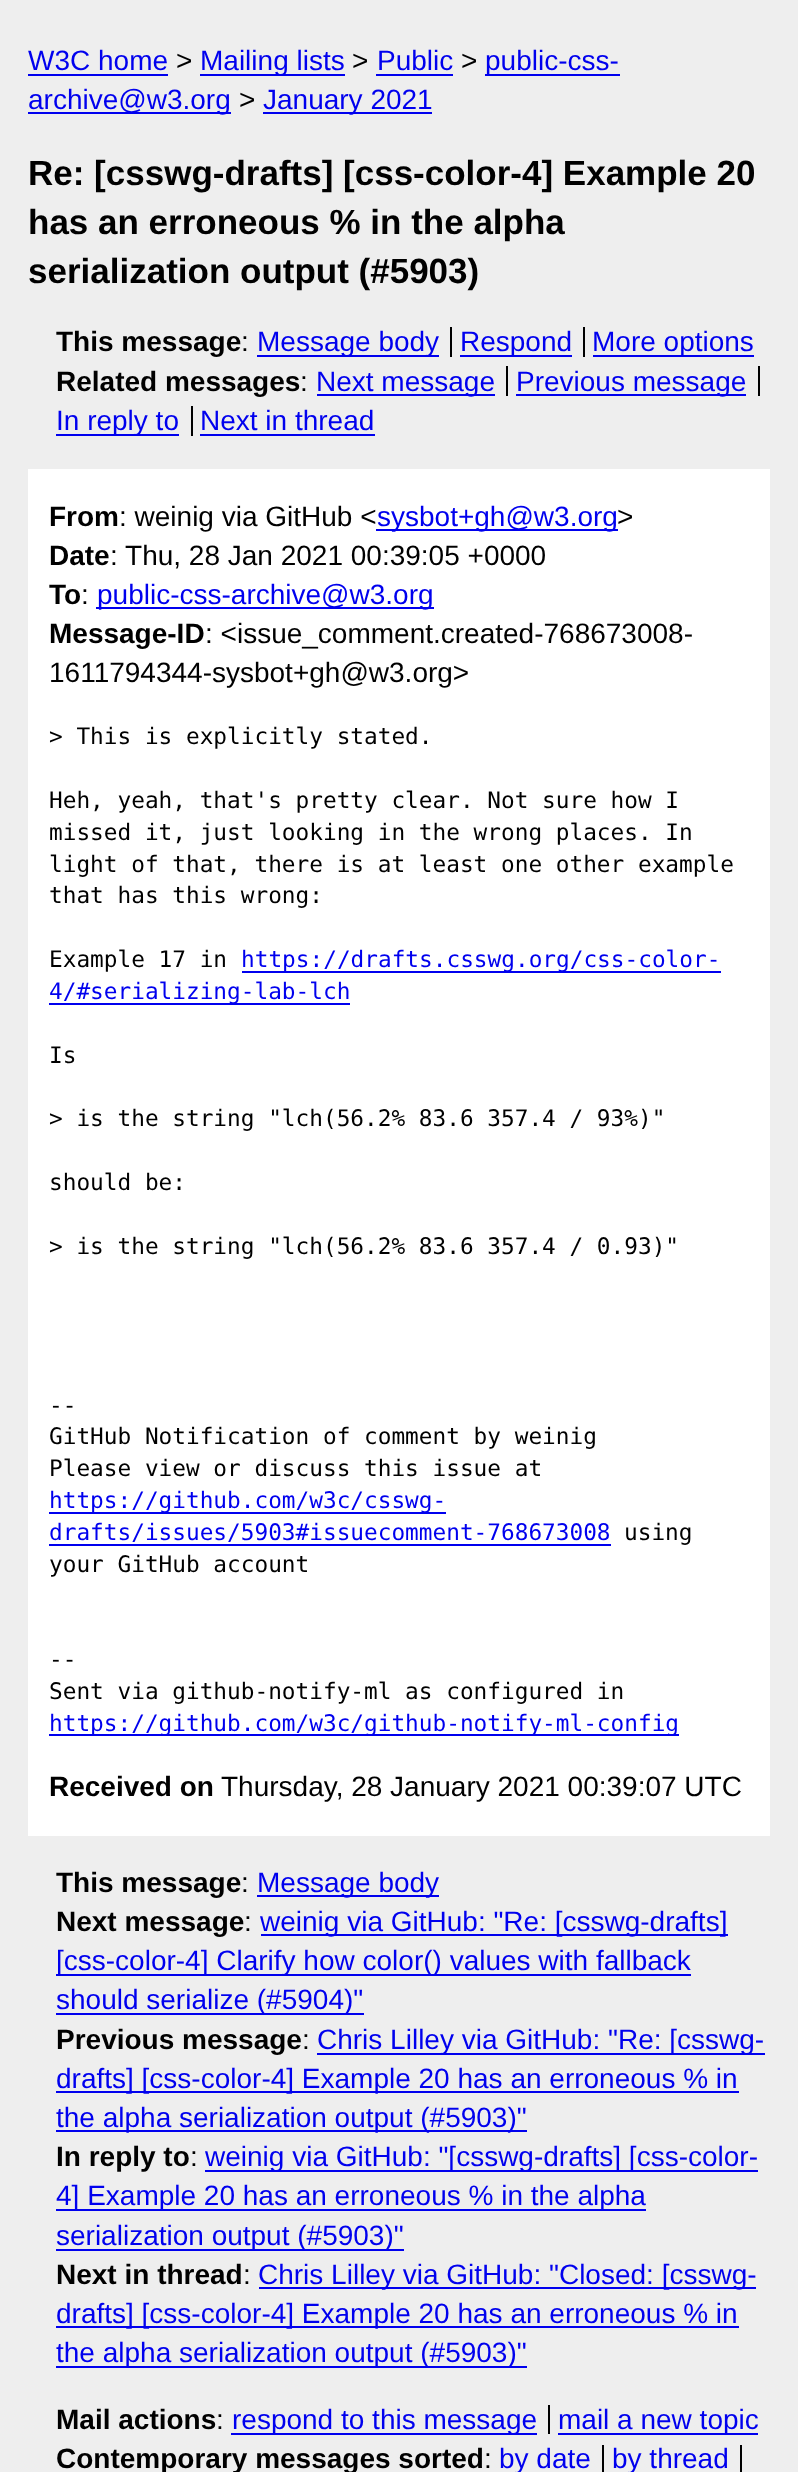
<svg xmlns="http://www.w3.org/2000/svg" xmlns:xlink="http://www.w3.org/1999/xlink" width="798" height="2472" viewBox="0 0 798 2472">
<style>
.cls-1{font:28px Liberation Sans;fill:#0000ee}
.cls-2{font:28px Liberation Sans;fill:#000000}
.cls-3{font:bold 35px Liberation Sans;fill:#000000}
.cls-4{font:bold 28px Liberation Sans;fill:#000000}
.cls-5{font:22.75px DejaVu Sans Mono;fill:#000000}
.cls-6{font:22.75px DejaVu Sans Mono;fill:#0000ee}
</style>
<rect width="100%" height="100%" fill="#eeeeee"/>
<rect fill="#0000ee" x="28" y="74" width="140" height="2"/>
<rect fill="#0000ee" x="200" y="74" width="145" height="2"/>
<rect fill="#0000ee" x="376" y="74" width="77" height="2"/>
<rect fill="#0000ee" x="485" y="74" width="135" height="2"/>
<rect fill="#0000ee" x="28" y="112" width="203" height="2"/>
<rect fill="#0000ee" x="263" y="112" width="169" height="2"/>
<rect fill="#0000ee" x="257" y="355" width="182" height="2"/>
<rect fill="#000000" x="450" y="327" width="2" height="30"/>
<rect fill="#0000ee" x="460" y="355" width="112" height="2"/>
<rect fill="#000000" x="583" y="327" width="2" height="30"/>
<rect fill="#0000ee" x="593" y="355" width="161" height="2"/>
<rect fill="#0000ee" x="317" y="394" width="178" height="2"/>
<rect fill="#000000" x="506" y="366" width="2" height="30"/>
<rect fill="#000000" x="758" y="366" width="2" height="30"/>
<rect fill="#0000ee" x="516" y="394" width="230" height="2"/>
<rect fill="#0000ee" x="56" y="434" width="123" height="2"/>
<rect fill="#000000" x="191" y="406" width="2" height="30"/>
<rect fill="#0000ee" x="200" y="434" width="175" height="2"/>
<rect fill="#ffffff" x="28" y="469" width="742" height="1367"/>
<rect fill="#0000ee" x="376" y="529" width="242" height="2"/>
<rect fill="#0000ee" x="96" y="607" width="338" height="2"/>
<rect fill="#0000ee" x="242" y="971" width="479" height="2"/>
<rect fill="#0000ee" x="49" y="1003" width="301" height="2"/>
<rect fill="#0000ee" x="49" y="1512" width="397" height="2"/>
<rect fill="#0000ee" x="49" y="1544" width="562" height="2"/>
<rect fill="#0000ee" x="49" y="1734" width="630" height="2"/>
<rect fill="#0000ee" x="257" y="1895" width="182" height="2"/>
<rect fill="#0000ee" x="261" y="1934" width="467" height="2"/>
<rect fill="#0000ee" x="56" y="1974" width="635" height="2"/>
<rect fill="#0000ee" x="56" y="2013" width="308" height="2"/>
<rect fill="#0000ee" x="317" y="2053" width="448" height="2"/>
<rect fill="#0000ee" x="56" y="2091" width="683" height="2"/>
<rect fill="#0000ee" x="56" y="2130" width="471" height="2"/>
<rect fill="#0000ee" x="205" y="2170" width="553" height="2"/>
<rect fill="#0000ee" x="56" y="2209" width="590" height="2"/>
<rect fill="#0000ee" x="56" y="2249" width="348" height="2"/>
<rect fill="#0000ee" x="259" y="2287" width="497" height="2"/>
<rect fill="#0000ee" x="56" y="2326" width="683" height="2"/>
<rect fill="#0000ee" x="56" y="2366" width="471" height="2"/>
<rect fill="#0000ee" x="231" y="2433" width="306" height="2"/>
<rect fill="#000000" x="548" y="2405" width="2" height="29"/>
<rect fill="#0000ee" x="558" y="2433" width="200" height="2"/>
<rect fill="#000000" x="602" y="2445" width="2" height="27"/>
<rect fill="#000000" x="740" y="2445" width="2" height="27"/>
<text class="cls-1" x="28" y="70">W3C home</text>
<text class="cls-2" x="176" y="70">&gt;</text>
<text class="cls-1" x="200" y="70">Mailing lists</text>
<text class="cls-2" x="352" y="70">&gt;</text>
<text class="cls-1" x="377" y="70">Public</text>
<text class="cls-2" x="461" y="70">&gt;</text>
<text class="cls-1" x="485" y="70">public-css-</text>
<text class="cls-1" x="28" y="109">archive@w3.org</text>
<text class="cls-2" x="239" y="109">&gt;</text>
<text class="cls-1" x="263" y="109">January 2021</text>
<text class="cls-3"><tspan x="28" y="185">Re: [csswg-drafts] [css-color-4] Example 20</tspan><tspan x="28" y="234">has an erroneous % in the alpha</tspan><tspan x="28" y="283">serialization output (#5903)</tspan></text>
<text class="cls-4" x="56" y="351">This message</text>
<text class="cls-2" x="241" y="351">:</text>
<text class="cls-1" x="257" y="351">Message body</text>
<text class="cls-1" x="460" y="351">Respond</text>
<text class="cls-1" x="592" y="351">More options</text>
<text class="cls-4" x="56" y="391">Related messages</text>
<text class="cls-2" x="300" y="391">:</text>
<text class="cls-1" x="316" y="391">Next message</text>
<text class="cls-1" x="516" y="391">Previous message</text>
<text class="cls-1" x="56" y="430">In reply to</text>
<text class="cls-1" x="200" y="430">Next in thread</text>
<text class="cls-4" x="49" y="526">From</text>
<text class="cls-2" x="119" y="526">: weinig via GitHub &lt;</text>
<text class="cls-1" x="377" y="526">sysbot+gh@w3.org</text>
<text class="cls-2" x="617" y="526">&gt;</text>
<text class="cls-4" x="49" y="565">Date</text>
<text class="cls-2" x="110" y="565">: Thu, 28 Jan 2021 00:39:05 +0000</text>
<text class="cls-4" x="49" y="604">To</text>
<text class="cls-2" x="81" y="604">:</text>
<text class="cls-1" x="97" y="604">public-css-archive@w3.org</text>
<text class="cls-4" x="49" y="643">Message-ID</text>
<text class="cls-2" x="205" y="643">: &lt;issue_comment.created-768673008-</text>
<text class="cls-2" x="49" y="682">1611794344-sysbot+gh@w3.org&gt;</text>
<text class="cls-5" x="49" y="744">&gt; This is explicitly stated.</text>
<text class="cls-5"><tspan x="49" y="808">Heh, yeah, that's pretty clear. Not sure how I</tspan><tspan x="49" y="840">missed it, just looking in the wrong places. In</tspan><tspan x="49" y="872">light of that, there is at least one other example</tspan><tspan x="49" y="903">that has this wrong:</tspan></text>
<text class="cls-5" x="49" y="967">Example 17 in</text>
<text class="cls-6" x="241" y="967">https://drafts.csswg.org/css-color-</text>
<text class="cls-6" x="49" y="999">4/#serializing-lab-lch</text>
<text class="cls-5" x="49" y="1063">Is</text>
<text class="cls-5" x="49" y="1126">&gt; is the string "lch(56.2% 83.6 357.4 / 93%)"</text>
<text class="cls-5" x="49" y="1190">should be:</text>
<text class="cls-5" x="49" y="1254">&gt; is the string "lch(56.2% 83.6 357.4 / 0.93)"</text>
<text class="cls-5"><tspan x="49" y="1413">--</tspan><tspan x="49" y="1444">GitHub Notification of comment by weinig</tspan><tspan x="49" y="1476">Please view or discuss this issue at</tspan></text>
<text class="cls-6"><tspan x="49" y="1508">https://github.com/w3c/csswg-</tspan><tspan x="49" y="1540">drafts/issues/5903#issuecomment-768673008</tspan></text>
<text class="cls-5" x="624" y="1540">using</text>
<text class="cls-5" x="49" y="1572">your GitHub account</text>
<text class="cls-5"><tspan x="49" y="1667">--</tspan><tspan x="49" y="1699">Sent via github-notify-ml as configured in</tspan></text>
<text class="cls-6" x="49" y="1731">https://github.com/w3c/github-notify-ml-config</text>
<text class="cls-4" x="49" y="1796">Received on</text>
<text class="cls-2" x="221" y="1796">Thursday, 28 January 2021 00:39:07 UTC</text>
<text class="cls-4" x="56" y="1892">This message</text>
<text class="cls-2" x="241" y="1892">:</text>
<text class="cls-1" x="257" y="1892">Message body</text>
<text class="cls-4" x="56" y="1931">Next message</text>
<text class="cls-2" x="244" y="1931">:</text>
<text class="cls-1" x="260" y="1931">weinig via GitHub: "Re: [csswg-drafts]</text>
<text class="cls-1"><tspan x="56" y="1970">[css-color-4] Clarify how color() values with fallback</tspan><tspan x="56" y="2009">should serialize (#5904)"</tspan></text>
<text class="cls-4" x="56" y="2049">Previous message</text>
<text class="cls-2" x="302" y="2049">:</text>
<text class="cls-1" x="317" y="2049">Chris Lilley via GitHub: "Re: [csswg-</text>
<text class="cls-1"><tspan x="56" y="2088">drafts] [css-color-4] Example 20 has an erroneous % in</tspan><tspan x="56" y="2127">the alpha serialization output (#5903)"</tspan></text>
<text class="cls-4" x="56" y="2166">In reply to</text>
<text class="cls-2" x="190" y="2166">:</text>
<text class="cls-1" x="205" y="2166">weinig via GitHub: "[csswg-drafts] [css-color-</text>
<text class="cls-1"><tspan x="56" y="2205">4] Example 20 has an erroneous % in the alpha</tspan><tspan x="56" y="2245">serialization output (#5903)"</tspan></text>
<text class="cls-4" x="56" y="2284">Next in thread</text>
<text class="cls-2" x="243" y="2284">:</text>
<text class="cls-1" x="258" y="2284">Chris Lilley via GitHub: "Closed: [csswg-</text>
<text class="cls-1"><tspan x="56" y="2323">drafts] [css-color-4] Example 20 has an erroneous % in</tspan><tspan x="56" y="2362">the alpha serialization output (#5903)"</tspan></text>
<text class="cls-4" x="56" y="2429">Mail actions</text>
<text class="cls-2" x="216" y="2429">:</text>
<text class="cls-1" x="232" y="2429">respond to this message</text>
<text class="cls-1" x="558" y="2429">mail a new topic</text>
<text class="cls-4" x="56" y="2468">Contemporary messages sorted</text>
<text class="cls-2" x="484" y="2468">:</text>
<text class="cls-1" x="499" y="2468">by date</text>
<text class="cls-1" x="612" y="2468">by thread</text>
</svg>
